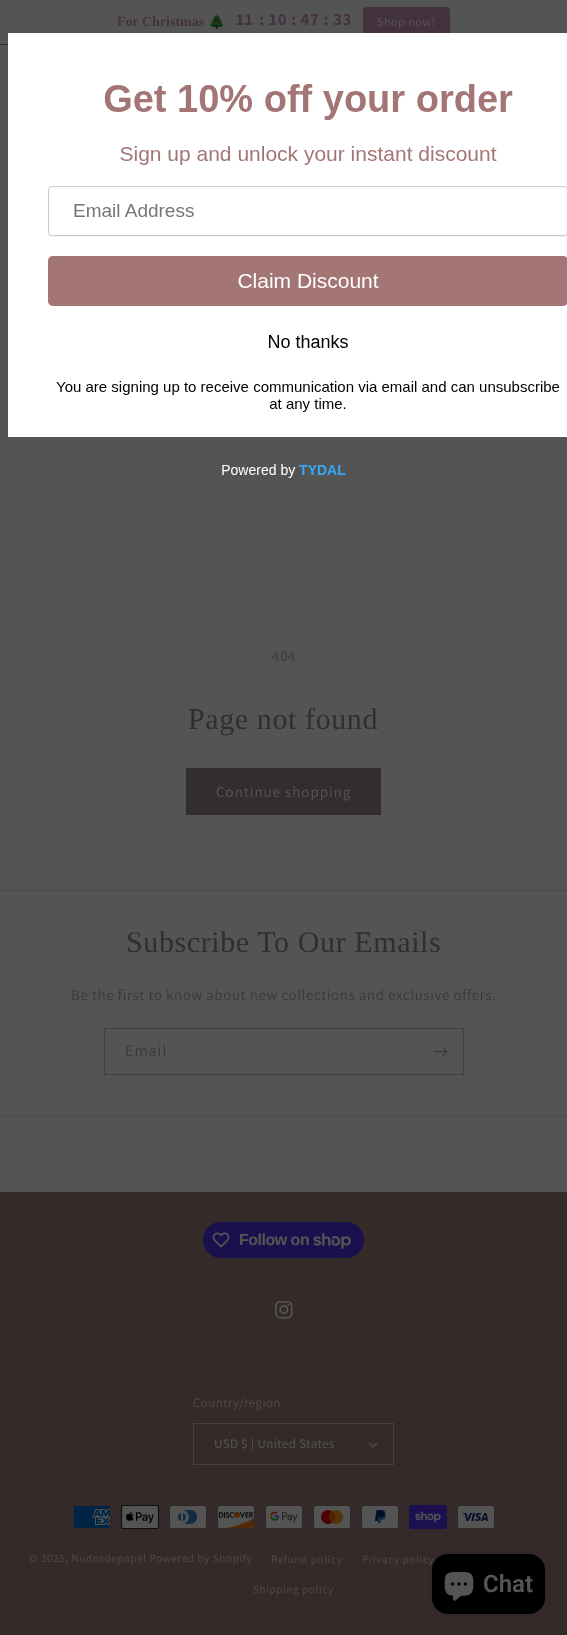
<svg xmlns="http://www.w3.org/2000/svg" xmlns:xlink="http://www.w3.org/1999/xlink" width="567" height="1635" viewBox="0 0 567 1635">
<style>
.cls-1{font:bold 14px Liberation Serif;fill:#cb96bc}
.cls-2{font:bold 14px Noto Color Emoji;fill:#cb96bc}
.cls-3{font:bold 17px Assistant;letter-spacing:0.6px;fill:#cb96bc}
.cls-4{font:12px Assistant;letter-spacing:0.6px;fill:#ffffff}
.cls-5{font:15px Assistant;letter-spacing:0.6px;fill:#b4a8a8}
.cls-6{font:30px Liberation Serif;letter-spacing:0.6px;fill:#9b8b8b}
.cls-7{font:15px Assistant;letter-spacing:1px;fill:#ffffff}
.cls-8{font:16px Assistant;letter-spacing:1px;fill:#b4a8a8}
.cls-9{font:bold 16px Liberation Sans;letter-spacing:-0.5px;fill:#ffffff}
.cls-10{font:13px Assistant;letter-spacing:0.4px;fill:#e8dfdf}
.cls-11{font:13px Assistant;letter-spacing:0.4px;fill:#ffffff}
.cls-12{font:11px Assistant;letter-spacing:0.7px;fill:#e8dfdf}
.cls-13{font:10px Assistant;letter-spacing:0.7px;fill:#e8dfdf}
.cls-14{font:600 24px Roboto;fill:#ffffff}
</style>
<rect width="100%" height="100%" fill="#ffffff"/>
<rect fill="#cb96bc" x="363" y="7" width="87" height="30" rx="4"/>
<rect fill="#a98a8a" x="0" y="44" width="8" height="1"/>
<rect fill="#f7f6f6" x="0" y="222" width="8" height="1"/>
<rect fill="#9b8b8b" x="186" y="768" width="195" height="47"/>
<rect fill="#f5f3f3" x="0" y="889" width="567" height="3"/>
<rect fill="#f5f3f3" x="0" y="1114" width="567" height="3"/>
<rect fill="none" stroke="#c8bfbf" x="104.5" y="1028.5" width="359" height="46"/>
<image xlink:href="image1.png" x="433" y="1046" width="15" height="11"/>
<rect fill="#a28080" x="0" y="1192" width="567" height="443"/>
<rect fill="#5433eb" x="203" y="1222" width="161" height="36" rx="18"/>
<image xlink:href="image2.png" x="212" y="1232" width="18" height="16"/>
<image xlink:href="image3.png" x="313" y="1233" width="38" height="16"/>
<image xlink:href="image4.png" x="275" y="1301" width="18" height="18"/>
<rect fill="#a98a8a" x="0" y="1362" width="567" height="1"/>
<image xlink:href="image5.png" x="368" y="1442" width="10" height="6"/>
<rect fill="none" stroke="#d5c6c6" x="193.5" y="1423.5" width="200" height="41"/>
<image xlink:href="image6.png" x="73" y="1505" width="38" height="24"/>
<image xlink:href="image7.png" x="121" y="1505" width="38" height="24"/>
<image xlink:href="image8.png" x="169" y="1505" width="38" height="24"/>
<image xlink:href="image9.png" x="217" y="1505" width="38" height="24"/>
<image xlink:href="image10.png" x="265" y="1505" width="38" height="24"/>
<image xlink:href="image11.png" x="313" y="1505" width="38" height="24"/>
<image xlink:href="image12.png" x="361" y="1505" width="38" height="24"/>
<image xlink:href="image13.png" x="409" y="1505" width="38" height="24"/>
<image xlink:href="image14.png" x="457" y="1505" width="38" height="24"/>
<rect fill="#000000" fill-opacity="0.15" filter="blur(2.5px)" x="432" y="1554" width="113" height="60" rx="16"/>
<text class="cls-1" x="117" y="26">For Christmas</text>
<text class="cls-2" x="208" y="26">🎄</text>
<text class="cls-3" x="236" y="25">11</text>
<text class="cls-3" x="259" y="25">:</text>
<text class="cls-3" x="269" y="25">10</text>
<text class="cls-3" x="291" y="25">: 47 : 33</text>
<text class="cls-4" x="377" y="26">Shop now!</text>
<text class="cls-5" x="272" y="661">404</text>
<text class="cls-6" x="188" y="729">Page not found</text>
<text class="cls-7" x="216" y="797">Continue shopping</text>
<text class="cls-6" x="126" y="952">Subscribe To Our Emails</text>
<text class="cls-5" x="71" y="1000">Be the first to know about new collections and exclusive offers.</text>
<text class="cls-8" x="125" y="1056">Email</text>
<text class="cls-9" x="239" y="1245">Follow on</text>
<text class="cls-10" x="193" y="1407">Country/region</text>
<text class="cls-11" x="214" y="1448">USD $ | United States</text>
<text class="cls-12" x="29" y="1562">© 2025, Nudosdepapel Powered by Shopify</text>
<text class="cls-13" x="260" y="1562">·</text>
<text class="cls-12" x="271" y="1563">Refund policy</text>
<text class="cls-13" x="351" y="1562">·</text>
<text class="cls-12" x="362" y="1563">Privacy policy</text>
<text class="cls-13" x="241" y="1593">·</text>
<text class="cls-12" x="253" y="1593">Shipping policy</text>
<rect fill="#000000" x="432" y="1554" width="113" height="60" rx="16"/>
<image xlink:href="image15.png" x="444" y="1572" width="30" height="29"/>
<text class="cls-14" x="483" y="1592">Chat</text>
<image xlink:href="image0.png" x="0" y="0" width="567" height="1635"/>
</svg>
